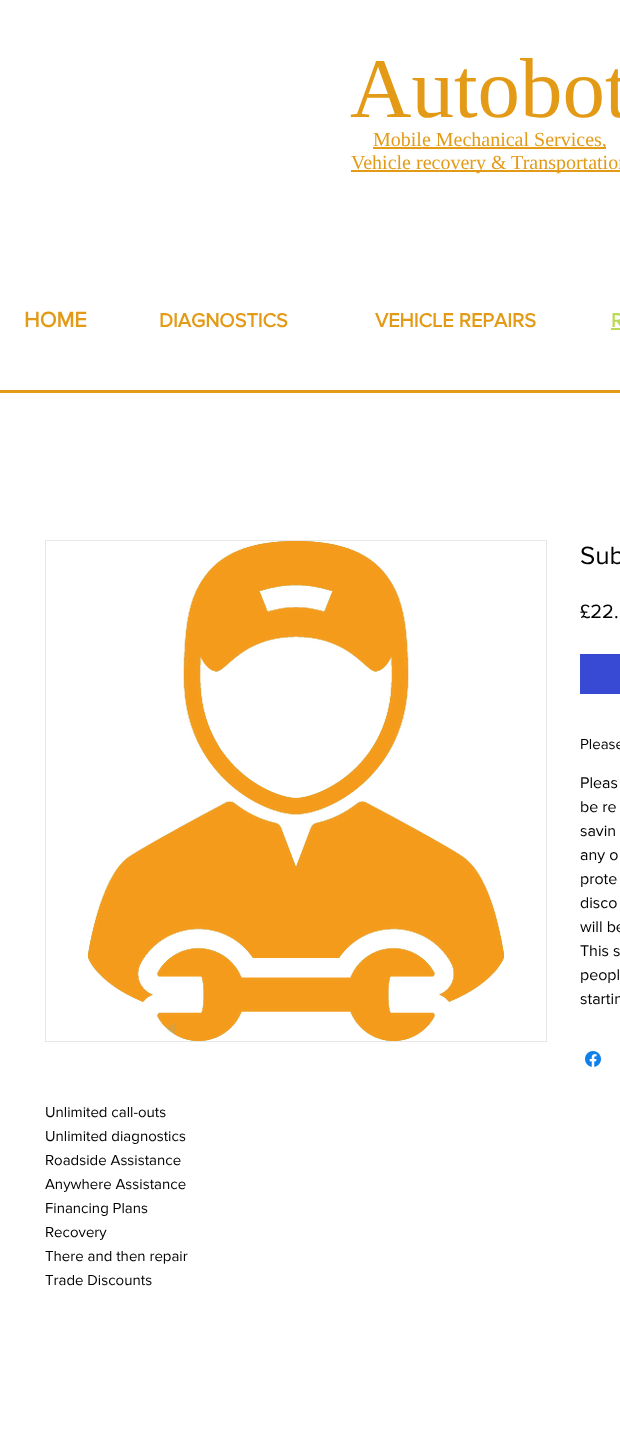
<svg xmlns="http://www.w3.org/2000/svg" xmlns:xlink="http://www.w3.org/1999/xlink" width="620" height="1439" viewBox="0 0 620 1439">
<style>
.cls-1{font:85px Liberation Serif;fill:#e39b17}
.cls-2{font:20px Liberation Serif;fill:#e39b17}
.cls-3{font:bold 22px 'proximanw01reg';fill:#e39b17}
.cls-4{font:bold 20px 'proximanw01reg';fill:#e39b17}
.cls-5{font:bold 20px 'proximanw01reg';fill:#bada55}
.cls-6{font:26px 'proximanw01reg';fill:#000000}
.cls-7{font:20px 'proximanw01reg';fill:#000000}
.cls-8{font:15px 'proximanw01reg';fill:#000000}
.cls-9{font:16px 'proximanw01reg';fill:#000000}
</style>
<rect width="100%" height="100%" fill="#ffffff"/>
<rect fill="#e39b17" x="373" y="147" width="233" height="2"/>
<rect fill="#e39b17" x="351" y="170" width="269" height="2"/>
<rect fill="#bada55" x="611" y="328" width="9" height="2"/>
<rect fill="#e39b17" x="0" y="390" width="620" height="3"/>
<rect fill="#384ad3" x="580" y="654" width="40" height="40"/>
<image xlink:href="image0.png" x="585" y="1051" width="16" height="16"/>
<rect fill="none" stroke="#e8e6e6" x="45.5" y="540.5" width="501" height="501"/>
<image xlink:href="image1.png" x="88" y="541" width="416" height="500"/>
<text class="cls-1" x="350" y="117">Autobot</text>
<text class="cls-2" x="373" y="146">Mobile Mechanical Services,</text>
<text class="cls-2" x="351" y="169">Vehicle recovery &amp; Transportation</text>
<text class="cls-3" x="24" y="327">HOME</text>
<text class="cls-4" x="159" y="327">DIAGNOSTICS</text>
<text class="cls-4" x="375" y="327">VEHICLE REPAIRS</text>
<text class="cls-5" x="611" y="327">R</text>
<text class="cls-6" x="580" y="564">Sub</text>
<text class="cls-7" x="580" y="618">£22.</text>
<text class="cls-8" x="580" y="749">Please</text>
<text class="cls-9"><tspan x="580" y="788">Pleas</tspan><tspan x="580" y="812">be re</tspan><tspan x="580" y="836">savin</tspan><tspan x="580" y="860">any o</tspan><tspan x="580" y="884">prote</tspan><tspan x="580" y="908">disco</tspan><tspan x="580" y="932">will be</tspan><tspan x="580" y="956">This s</tspan><tspan x="580" y="980">peopl</tspan><tspan x="580" y="1004">startin</tspan></text>
<text class="cls-8"><tspan x="45" y="1117">Unlimited call-outs</tspan><tspan x="45" y="1141">Unlimited diagnostics</tspan><tspan x="45" y="1165">Roadside Assistance</tspan><tspan x="45" y="1189">Anywhere Assistance</tspan><tspan x="45" y="1213">Financing Plans</tspan><tspan x="45" y="1237">Recovery</tspan><tspan x="45" y="1261">There and then repair</tspan><tspan x="45" y="1285">Trade Discounts</tspan></text>
</svg>
